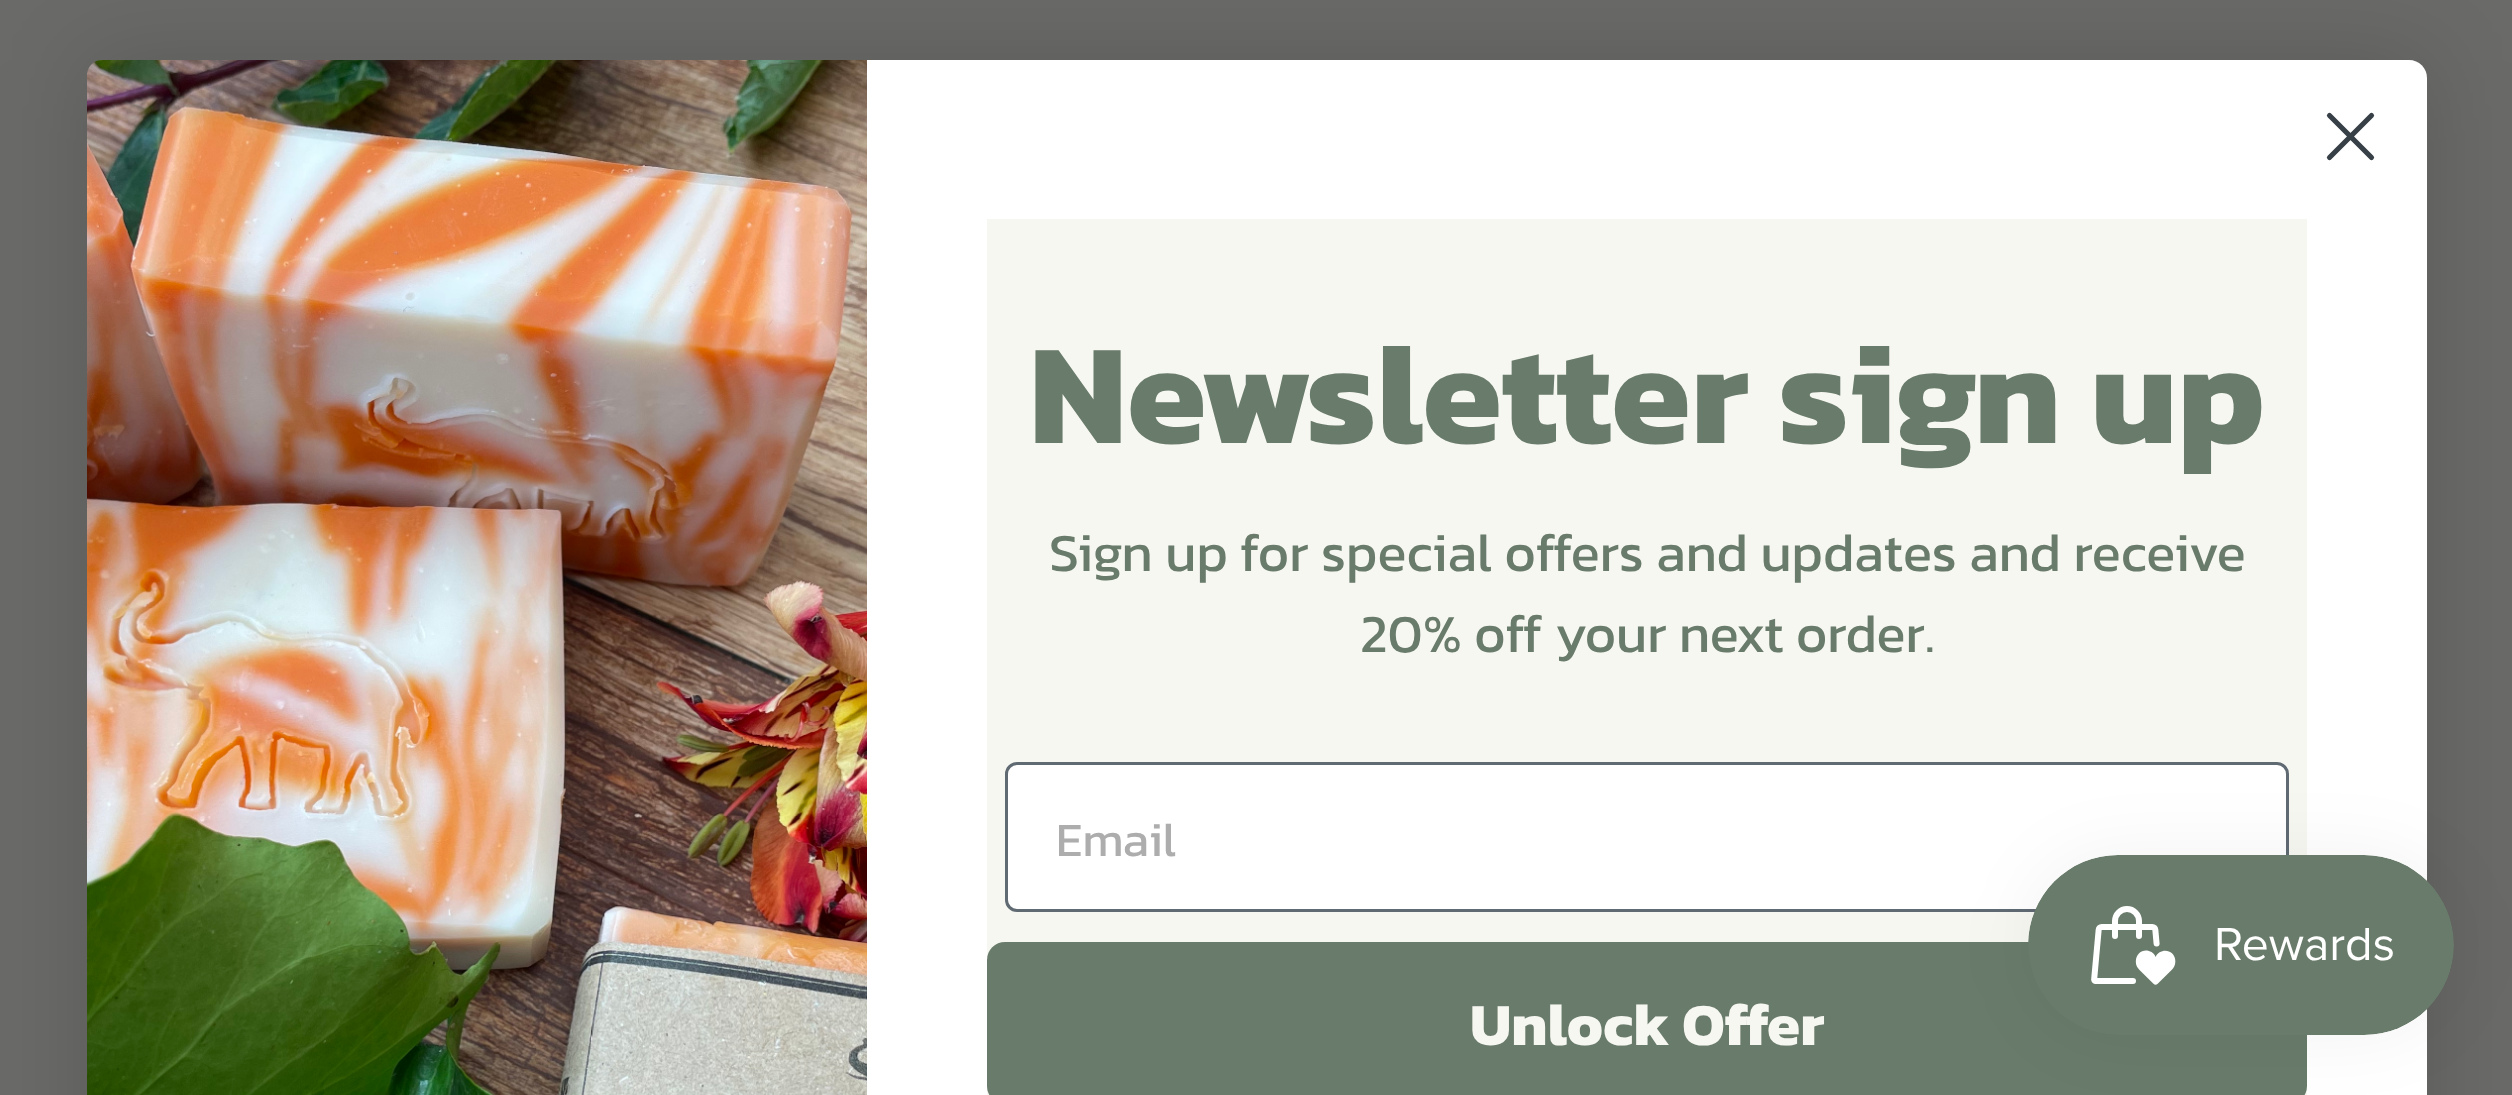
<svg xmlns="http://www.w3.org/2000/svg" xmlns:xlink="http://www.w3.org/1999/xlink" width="2512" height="1095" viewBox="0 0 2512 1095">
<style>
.cls-1{font:bold 144px Kanit;fill:#697b6a}
.cls-2{font:54px Kanit;fill:#697b6a}
.cls-3{font:48px Kanit;fill:#adadad}
.cls-4{font:bold 60px Kanit;fill:#f7f7f2}
</style>
<rect width="100%" height="100%" fill="#6a6a68"/>
<rect fill="#000000" fill-opacity="0.15" filter="blur(45px)" x="87" y="60" width="2340" height="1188" rx="18"/>
<path fill="#ffffff" d="M105 60H2409C2419 60 2427 68 2427 78V1095H87V78C87 68 95 60 105 60Z"/>
<path fill="none" stroke="#373f47" stroke-width="5.2" stroke-linecap="round" stroke-linejoin="round" d="M2329.5 115.5L2371.5 157.5M2329.5 157.5L2371.5 115.5Z"/>
<image xlink:href="image0.png" x="87" y="60" width="780" height="1035"/>
<rect fill="#f7f7f2" x="987" y="219" width="1320" height="876"/>
<rect fill="#ffffff" stroke="#606a72" stroke-width="3" x="1006.5" y="763.5" width="1281" height="147" rx="10.5"/>
<rect fill="#697b6a" x="987" y="942" width="1320" height="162" rx="18"/>
<rect fill="#000000" fill-opacity="0.05" filter="blur(37.5px)" x="2028" y="855" width="426" height="180" rx="90"/>
<image xlink:href="image1.png" x="2028" y="855" width="426" height="180"/>
<text class="cls-1" x="1029" y="443">Newsletter sign up</text>
<text class="cls-2" x="1049" y="571">Sign up for special offers and updates and receive</text>
<text class="cls-2" x="1360" y="652">20% off your next order.</text>
<text class="cls-3" x="1056" y="856">Email</text>
<text class="cls-4" x="1470" y="1045">Unlock Offer</text>
</svg>
